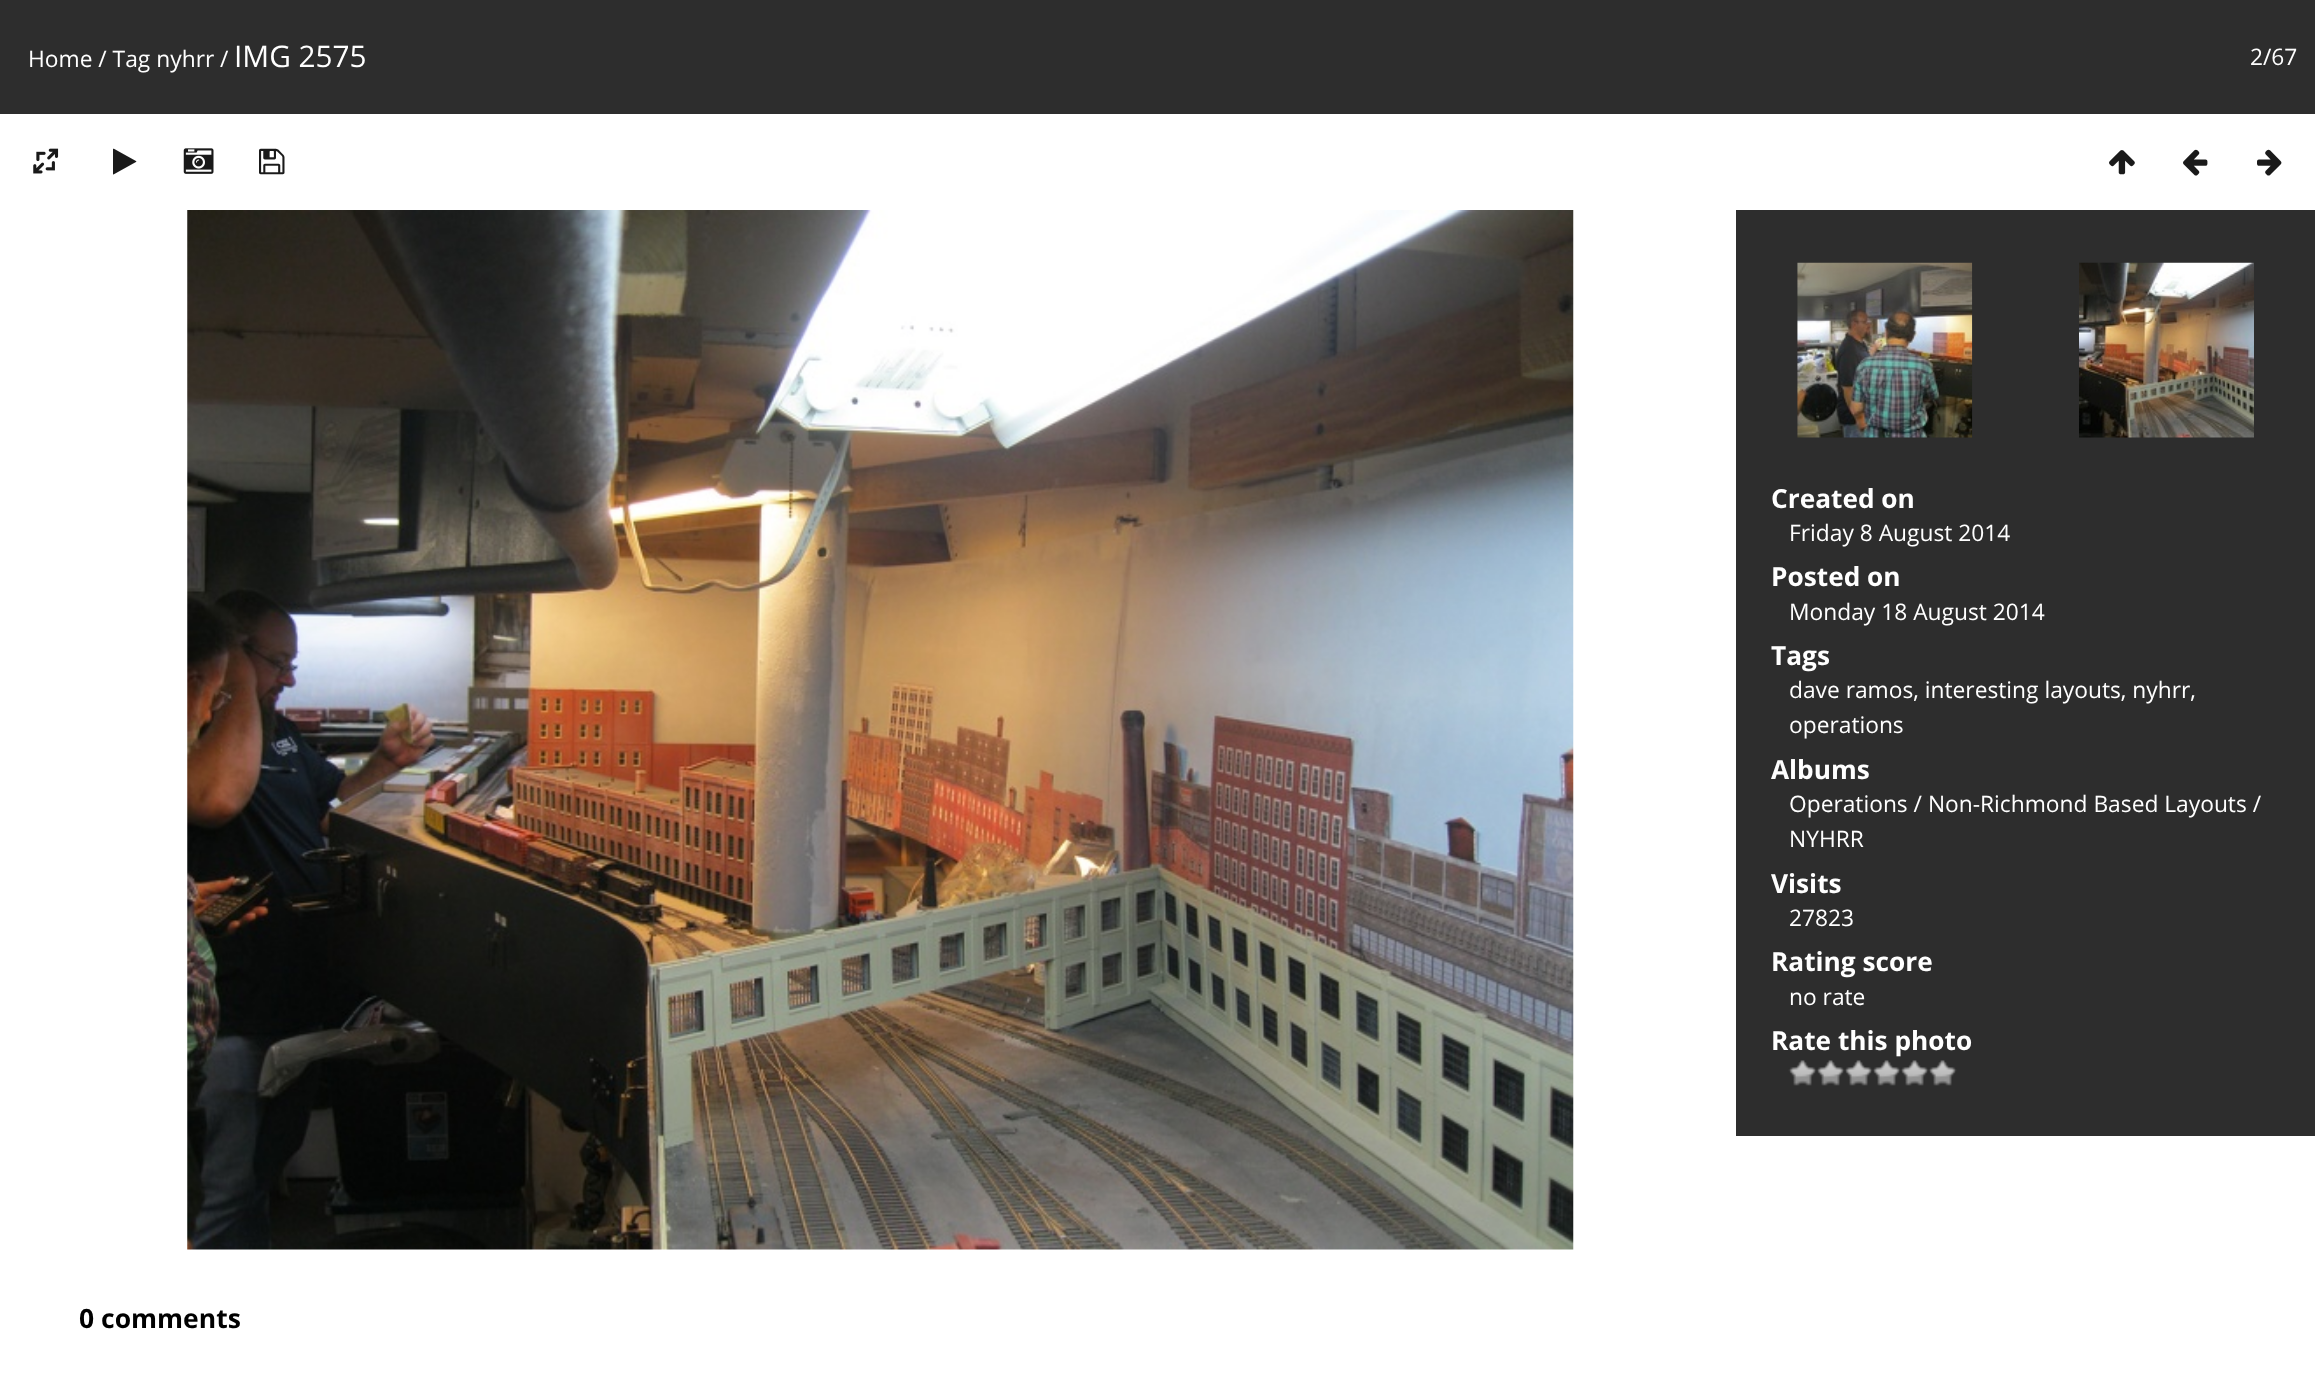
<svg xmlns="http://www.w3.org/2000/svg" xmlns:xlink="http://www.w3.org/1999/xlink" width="2315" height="1382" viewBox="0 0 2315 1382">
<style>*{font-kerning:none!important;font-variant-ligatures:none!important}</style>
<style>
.cls-1{font:22.75px Open Sans;fill:#ffffff}
.cls-2{font:29.75px Open Sans;fill:#ffffff}
.cls-3{font:29.75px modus;fill:#1a1a1a}
.cls-4{font:bold 26.25px Open Sans;fill:#ffffff}
.cls-5{font:bold 26.5px Open Sans;fill:#000000}
</style>
<rect width="100%" height="100%" fill="#ffffff"/>
<rect fill="#2d2d2d" x="0" y="0" width="2315" height="114"/>
<image xlink:href="image0.png" x="33" y="148" width="26" height="26"/>
<image xlink:href="image1.png" x="183" y="148" width="31" height="26"/>
<image xlink:href="image2.png" x="187" y="210" width="1387" height="1040"/>
<rect fill="#2d2d2d" x="1736" y="210" width="579" height="926"/>
<image xlink:href="image3.png" x="1797" y="262" width="176" height="176"/>
<image xlink:href="image4.png" x="2079" y="262" width="175" height="176"/>
<image xlink:href="image5.png" x="1788" y="1060" width="29" height="26"/>
<image xlink:href="image6.png" x="1817" y="1060" width="28" height="26"/>
<image xlink:href="image7.png" x="1845" y="1060" width="28" height="26"/>
<image xlink:href="image8.png" x="1873" y="1060" width="28" height="26"/>
<image xlink:href="image7.png" x="1901" y="1060" width="28" height="26"/>
<image xlink:href="image8.png" x="1929" y="1060" width="28" height="26"/>
<text class="cls-1" x="28" y="67">Home / Tag nyhrr /</text>
<text class="cls-2" x="234" y="67">IMG 2575</text>
<text class="cls-1" x="2250" y="65">2/67</text>
<text class="cls-3" x="113" y="172">▶</text>
<text class="cls-3" x="259" y="172">💾</text>
<text class="cls-3" x="2109" y="172">↑</text>
<text class="cls-3" x="2183" y="172">←</text>
<text class="cls-3" x="2257" y="172">→</text>
<text class="cls-4" x="1771" y="508">Created on</text>
<text class="cls-1" x="1789" y="541">Friday 8 August 2014</text>
<text class="cls-4" x="1771" y="586">Posted on</text>
<text class="cls-1" x="1789" y="620">Monday 18 August 2014</text>
<text class="cls-4" x="1771" y="665">Tags</text>
<text class="cls-1"><tspan x="1789" y="698">dave ramos, interesting layouts, nyhrr,</tspan><tspan x="1789" y="733">operations</tspan></text>
<text class="cls-4" x="1771" y="779">Albums</text>
<text class="cls-1"><tspan x="1789" y="812">Operations / Non-Richmond Based Layouts /</tspan><tspan x="1789" y="847">NYHRR</tspan></text>
<text class="cls-4" x="1771" y="893">Visits</text>
<text class="cls-1" x="1789" y="926">27823</text>
<text class="cls-4" x="1771" y="971">Rating score</text>
<text class="cls-1" x="1789" y="1005">no rate</text>
<text class="cls-4" x="1771" y="1050">Rate this photo</text>
<text class="cls-5" x="79" y="1328">0 comments</text>
</svg>
